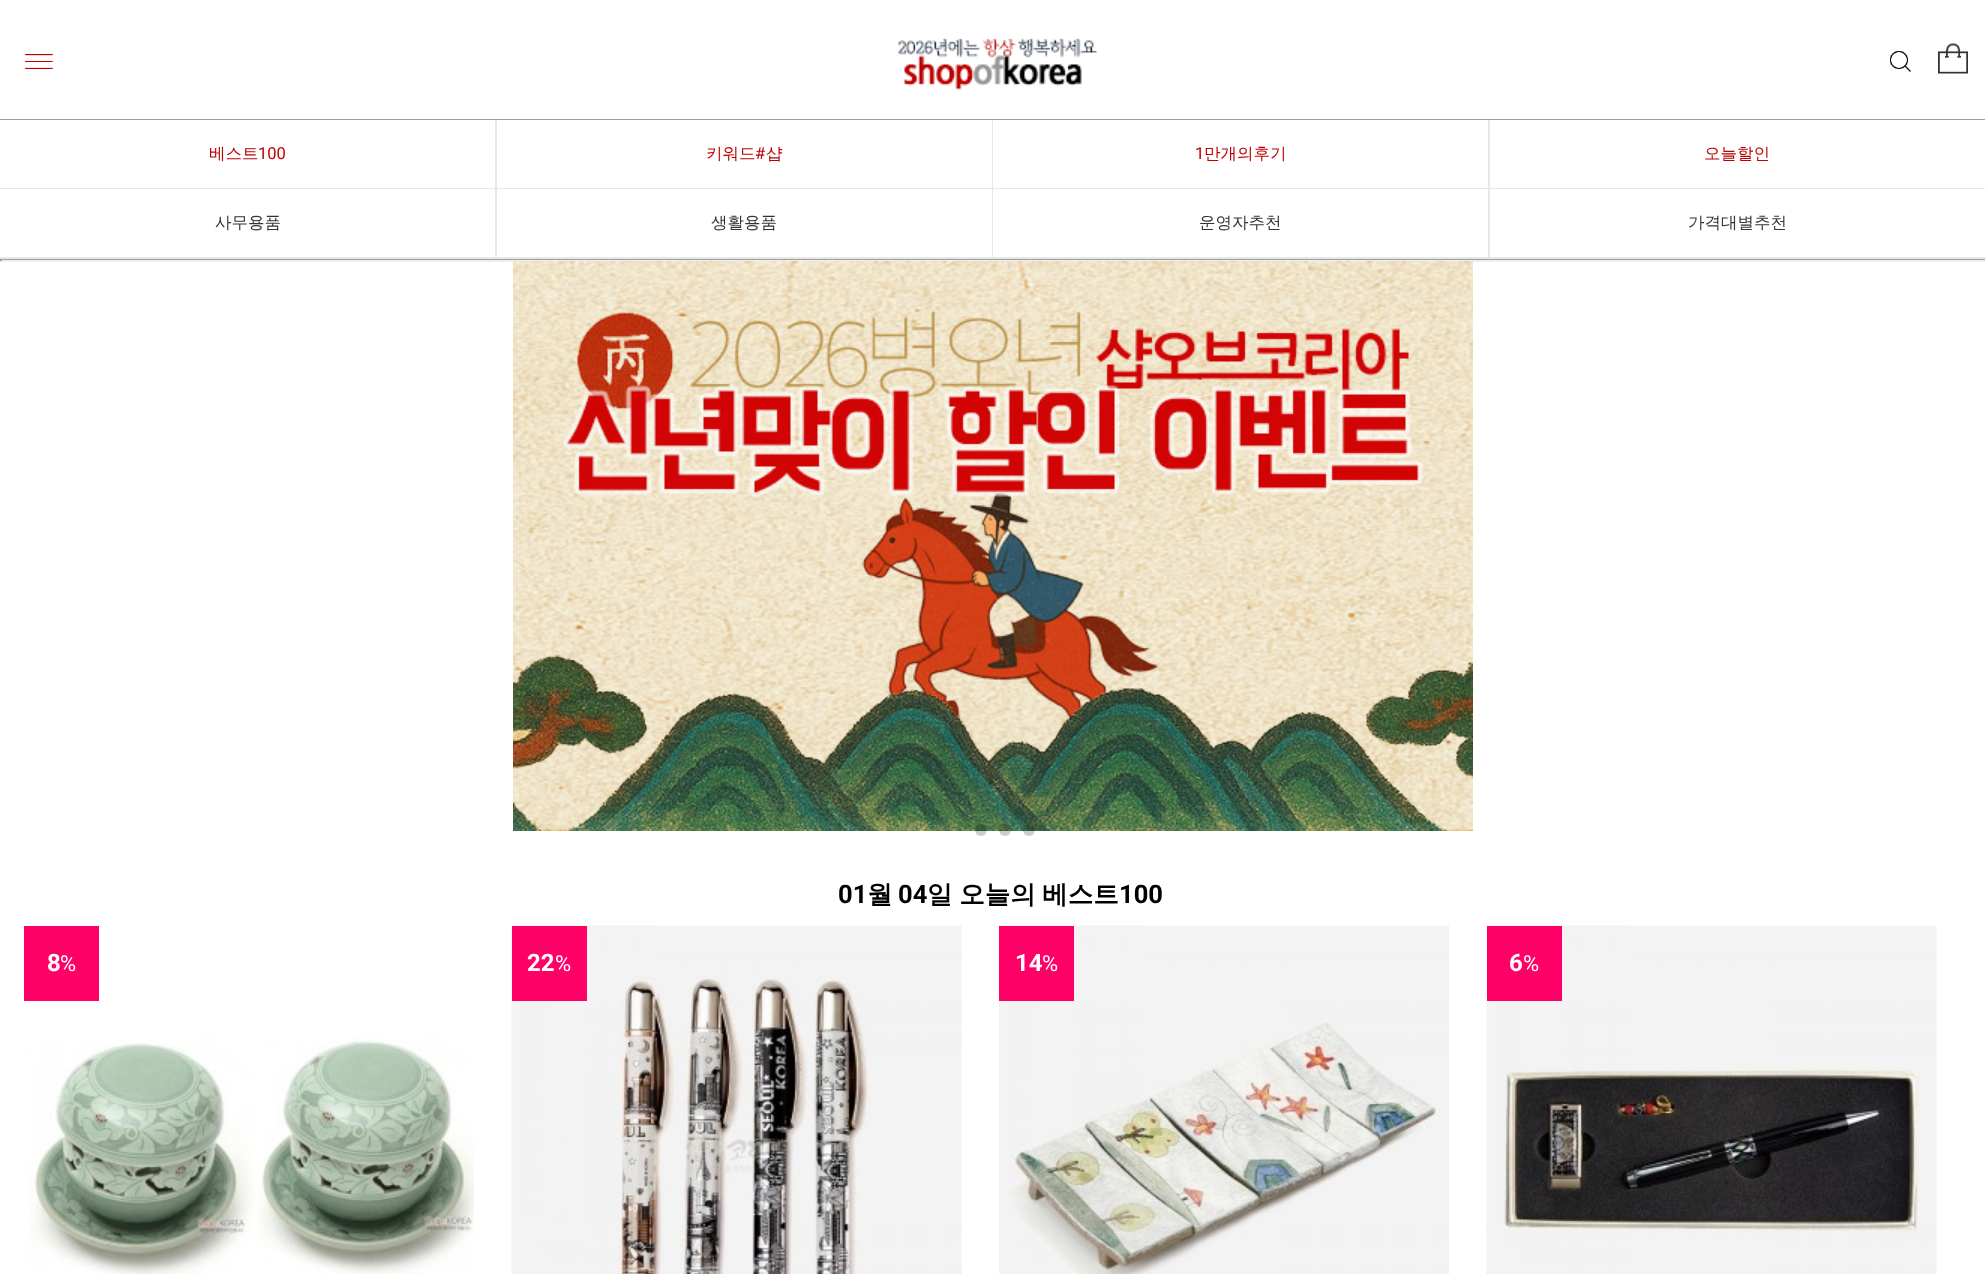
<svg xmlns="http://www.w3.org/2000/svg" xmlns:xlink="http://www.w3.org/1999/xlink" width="1985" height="1274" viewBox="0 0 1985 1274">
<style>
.cls-1{font:500 16.5px WenQuanYi Zen Hei;fill:#bc0000}
.cls-2{font:16.5px Roboto;fill:#bc0000}
.cls-3{font:500 16.5px WenQuanYi Zen Hei;fill:#333333}
.cls-4{font:bold 25.5px Roboto;fill:#000000}
.cls-5{font:bold 25.5px WenQuanYi Zen Hei;fill:#000000}
.cls-6{font:bold 24px Roboto;fill:#ffffff}
.cls-7{font:22px Roboto;fill:#ffffff}
</style>
<rect width="100%" height="100%" fill="#ffffff"/>
<image xlink:href="image0.png" x="24" y="54" width="30" height="15"/>
<image xlink:href="image1.png" x="898" y="38" width="199" height="53"/>
<image xlink:href="image2.png" x="1890" y="51" width="21" height="21"/>
<image xlink:href="image3.png" x="1938" y="43" width="30" height="31"/>
<rect fill="#9d9d9d" x="0" y="119" width="1985" height="1"/>
<rect fill="#e7e7e7" x="495" y="120" width="2" height="138"/>
<rect fill="#e7e7e7" x="0" y="188" width="497" height="1"/>
<rect fill="#e7e7e7" x="992" y="120" width="1" height="138"/>
<rect fill="#e7e7e7" x="497" y="188" width="496" height="1"/>
<rect fill="#e7e7e7" x="1488" y="120" width="2" height="138"/>
<rect fill="#e7e7e7" x="993" y="188" width="992" height="1"/>
<rect fill="#9f9f9f" x="0" y="259" width="1985" height="1"/>
<rect fill="#eeeeee" x="0" y="260" width="1985" height="2"/>
<rect fill="#9f9f9f" x="0" y="258" width="2" height="3"/>
<rect fill="#e7e7e7" x="0" y="257" width="1985" height="2"/>
<image xlink:href="image4.png" x="513" y="261" width="960" height="570"/>
<circle fill="#000000" fill-opacity="0.2" cx="981" cy="830" r="6"/>
<circle fill="#000000" fill-opacity="0.2" cx="1005" cy="830" r="6"/>
<circle fill="#000000" fill-opacity="0.2" cx="1029" cy="830" r="6"/>
<rect fill="#ff0066" x="24" y="926" width="75" height="75"/>
<image xlink:href="image5.png" x="29" y="1038" width="445" height="236"/>
<image xlink:href="image6.png" x="511" y="925" width="451" height="349"/>
<rect fill="#ff0066" x="512" y="926" width="75" height="75"/>
<image xlink:href="image7.png" x="999" y="925" width="450" height="349"/>
<rect fill="#ff0066" x="999" y="926" width="75" height="75"/>
<image xlink:href="image8.png" x="1486" y="925" width="451" height="349"/>
<rect fill="#ff0066" x="1487" y="926" width="75" height="75"/>
<text class="cls-1" x="209" y="159">베스트</text>
<text class="cls-2" x="258" y="159">100</text>
<text class="cls-1" x="706" y="159">키워드</text>
<text class="cls-2" x="755" y="159">#</text>
<text class="cls-1" x="766" y="159">샵</text>
<text class="cls-2" x="1195" y="159">1</text>
<text class="cls-1" x="1204" y="159">만개의후기</text>
<text class="cls-1" x="1704" y="159">오늘할인</text>
<text class="cls-3" x="215" y="228">사무용품</text>
<text class="cls-3" x="711" y="228">생활용품</text>
<text class="cls-3" x="1199" y="228">운영자추천</text>
<text class="cls-3" x="1688" y="228">가격대별추천</text>
<text class="cls-4" x="838" y="903">01</text>
<text class="cls-5" x="867" y="903">월</text>
<text class="cls-4" x="898" y="903">04</text>
<text class="cls-5" x="927" y="903" word-spacing="-1">일 오늘의 베스트</text>
<text class="cls-4" x="1119" y="903">100</text>
<text class="cls-6" x="47" y="971">8</text>
<text class="cls-7" x="60" y="971">%</text>
<text class="cls-6" x="527" y="971">22</text>
<text class="cls-7" x="555" y="971">%</text>
<text class="cls-6" x="1015" y="971">14</text>
<text class="cls-7" x="1042" y="971">%</text>
<text class="cls-6" x="1509" y="971">6</text>
<text class="cls-7" x="1523" y="971">%</text>
</svg>
